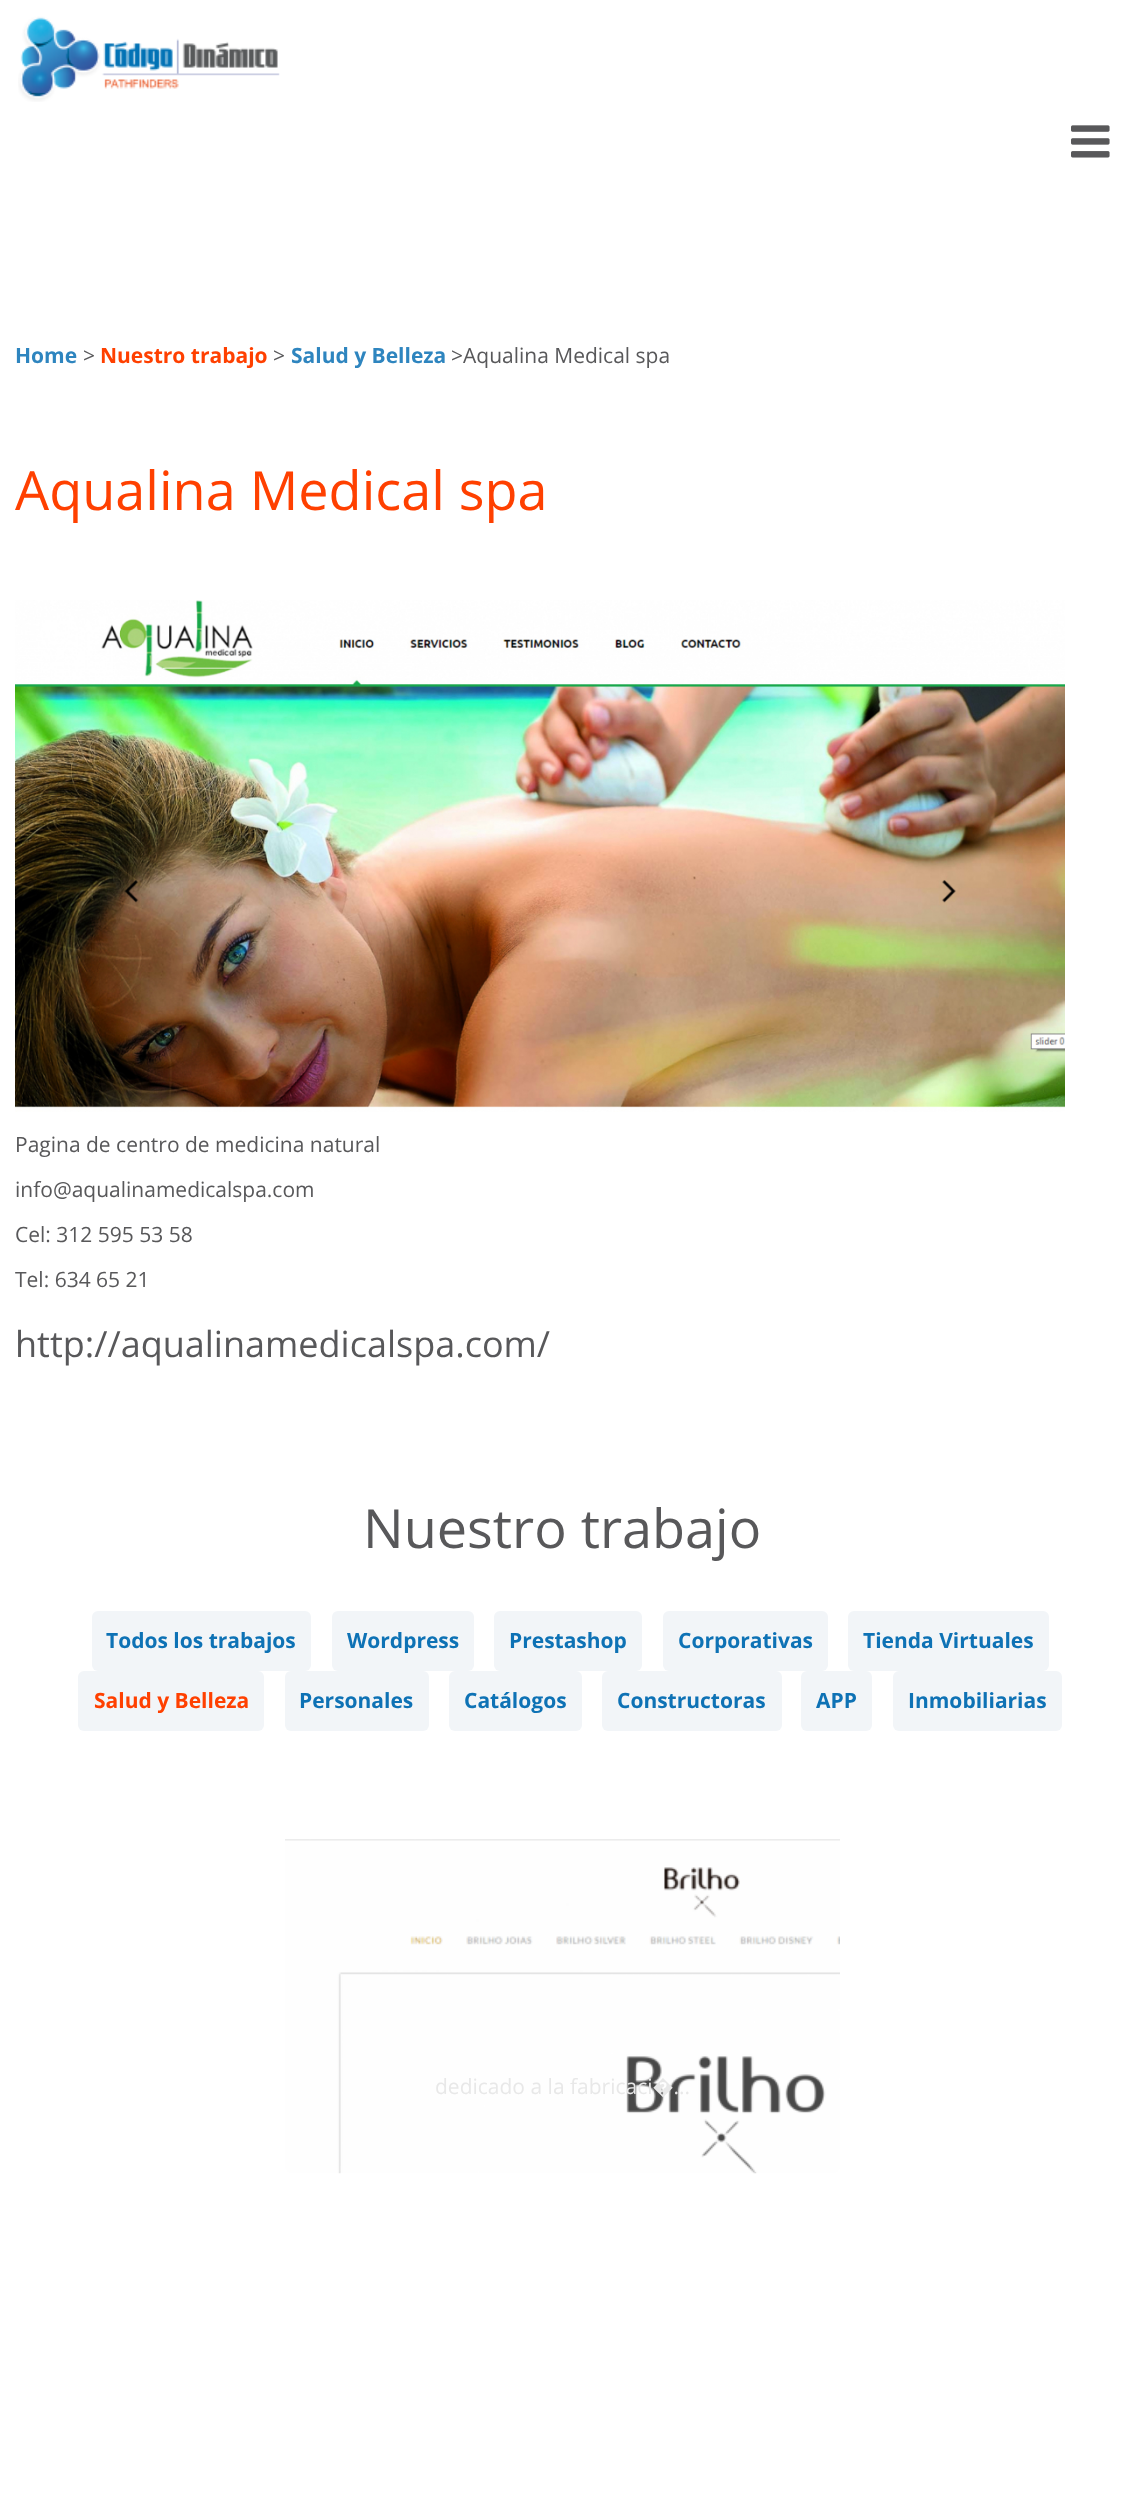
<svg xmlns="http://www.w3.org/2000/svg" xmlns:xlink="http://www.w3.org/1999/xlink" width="1125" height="2500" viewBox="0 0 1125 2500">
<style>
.cls-1{font:bold 21px Open Sans;fill:#2e85bf}
.cls-2{font:21px Open Sans;fill:#58585a}
.cls-3{font:bold 21px Open Sans;fill:#ff4000}
.cls-4{font:54px Open Sans;fill:#ff4000}
.cls-5{font:36px Open Sans;fill:#58585a}
.cls-6{font:54px Open Sans;fill:#58585a}
.cls-7{font:bold 21px Open Sans;fill:#0e72b5}
.cls-8{font:21px Open Sans;fill:#e8e8e8}
</style>
<rect width="100%" height="100%" fill="#ffffff"/>
<image xlink:href="image0.png" x="18" y="16" width="262" height="86"/>
<image xlink:href="image1.png" x="1071" y="125" width="39" height="33"/>
<image xlink:href="image2.png" x="15" y="600" width="1050" height="512"/>
<rect fill="#f2f5f8" x="92" y="1611" width="219" height="60" rx="6"/>
<rect fill="#f2f5f8" x="332" y="1611" width="142" height="60" rx="6"/>
<rect fill="#f2f5f8" x="494" y="1611" width="148" height="60" rx="6"/>
<rect fill="#f2f5f8" x="663" y="1611" width="165" height="60" rx="6"/>
<rect fill="#f2f5f8" x="848" y="1611" width="201" height="60" rx="6"/>
<rect fill="#f2f5f8" x="78" y="1671" width="186" height="60" rx="6"/>
<rect fill="#f2f5f8" x="285" y="1671" width="144" height="60" rx="6"/>
<rect fill="#f2f5f8" x="449" y="1671" width="133" height="60" rx="6"/>
<rect fill="#f2f5f8" x="602" y="1671" width="180" height="60" rx="6"/>
<rect fill="#f2f5f8" x="801" y="1671" width="71" height="60" rx="6"/>
<rect fill="#f2f5f8" x="893" y="1671" width="169" height="60" rx="6"/>
<image xlink:href="image3.png" x="285" y="1839" width="555" height="335"/>
<text class="cls-1" x="15" y="363">Home</text>
<text class="cls-2" x="83" y="363">&gt;</text>
<text class="cls-3" x="100" y="363">Nuestro trabajo</text>
<text class="cls-2" x="273" y="363">&gt;</text>
<text class="cls-1" x="291" y="363">Salud y Belleza</text>
<text class="cls-2" x="451" y="363">&gt;Aqualina Medical spa</text>
<text class="cls-4" x="15" y="510">Aqualina Medical spa</text>
<text class="cls-2" x="15" y="1152">Pagina de centro de medicina natural</text>
<text class="cls-2" x="15" y="1197">info@aqualinamedicalspa.com</text>
<text class="cls-2" x="15" y="1242">Cel: 312 595 53 58</text>
<text class="cls-2" x="15" y="1287">Tel: 634 65 21</text>
<text class="cls-5" x="15" y="1357">http://aqualinamedicalspa.com/</text>
<text class="cls-6" x="363" y="1548">Nuestro trabajo</text>
<text class="cls-7" x="106" y="1648">Todos los trabajos</text>
<text class="cls-7" x="347" y="1648">Wordpress</text>
<text class="cls-7" x="509" y="1648">Prestashop</text>
<text class="cls-7" x="678" y="1648">Corporativas</text>
<text class="cls-7" x="863" y="1648">Tienda Virtuales</text>
<text class="cls-3" x="94" y="1708">Salud y Belleza</text>
<text class="cls-7" x="299" y="1708">Personales</text>
<text class="cls-7" x="464" y="1708">Catálogos</text>
<text class="cls-7" x="617" y="1708">Constructoras</text>
<text class="cls-7" x="816" y="1708">APP</text>
<text class="cls-7" x="908" y="1708">Inmobiliarias</text>
<text class="cls-8" x="435" y="2094">dedicado a la fabricaci�...</text>
</svg>
